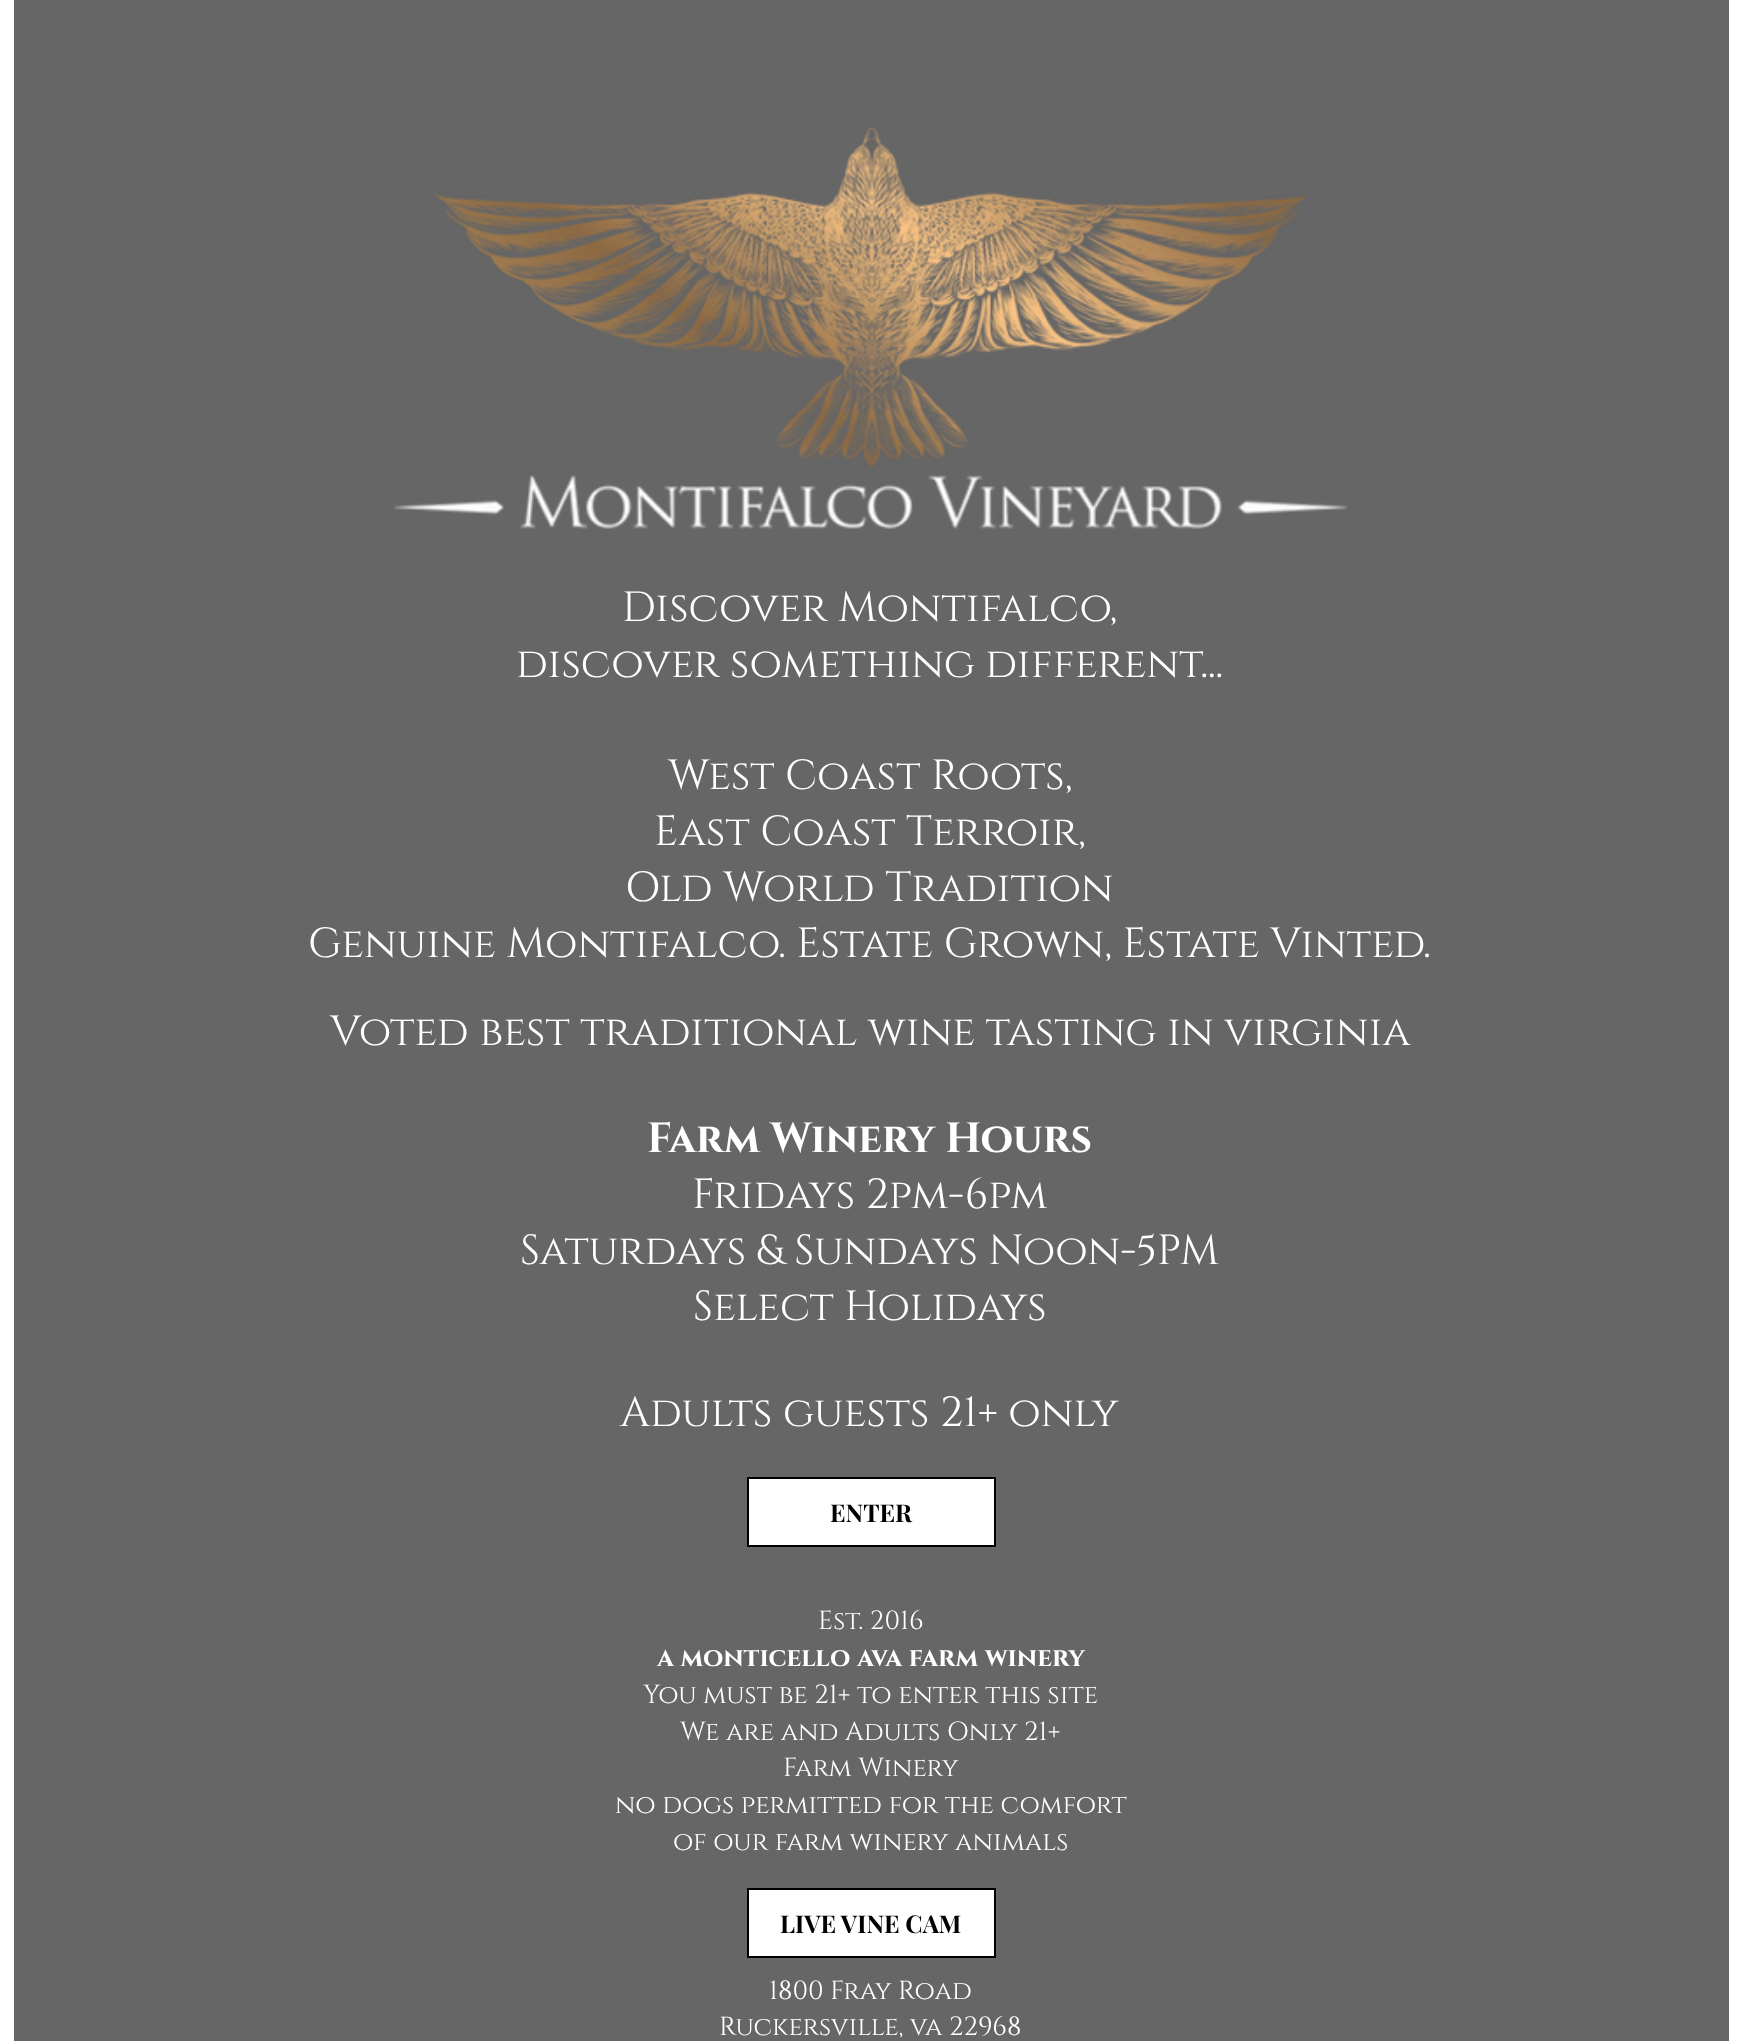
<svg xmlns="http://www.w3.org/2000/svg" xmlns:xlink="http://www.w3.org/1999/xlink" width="1740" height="2041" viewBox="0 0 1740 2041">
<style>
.cls-1{font:42px Cinzel;fill:#ffffff}
.cls-2{font:bold 42px Cinzel;fill:#ffffff}
.cls-3{font:bold 24.5px Playfair Display;fill:#000000}
.cls-4{font:26.25px Cinzel;fill:#ffffff}
.cls-5{font:bold 26.25px Cinzel;fill:#ffffff}
</style>
<rect width="100%" height="100%" fill="#ffffff"/>
<rect fill="#666666" x="14" y="0" width="1715" height="2041"/>
<image xlink:href="image0.png" x="436" y="128" width="870" height="339"/>
<image xlink:href="image1.png" x="394" y="475" width="953" height="54"/>
<rect fill="#ffffff" stroke="#000000" stroke-width="2" x="748" y="1478" width="247" height="68"/>
<rect fill="#ffffff" stroke="#000000" stroke-width="2" x="748" y="1889" width="247" height="68"/>
<text class="cls-1" x="622" y="621">Discover Montifalco,</text>
<text class="cls-1" x="516" y="677">discover something different...</text>
<text class="cls-1" x="668" y="789">West Coast Roots,</text>
<text class="cls-1" x="654" y="845">East Coast Terroir,</text>
<text class="cls-1" x="625" y="901">Old World Tradition</text>
<text class="cls-1" x="308" y="957">Genuine Montifalco. Estate Grown, Estate Vinted.</text>
<text class="cls-1" x="330" y="1045">Voted best traditional wine tasting in virginia</text>
<text class="cls-2" x="647" y="1152">Farm Winery Hours</text>
<text class="cls-1" x="692" y="1208">Fridays 2pm-6pm</text>
<text class="cls-1" x="520" y="1264">Saturdays &amp; Sundays Noon-5PM</text>
<text class="cls-1" x="693" y="1320">Select Holidays</text>
<text class="cls-1" x="620" y="1426">Adults guests 21+ only</text>
<text class="cls-3" x="830" y="1522">ENTER</text>
<text class="cls-4" x="818" y="1629">Est. 2016</text>
<text class="cls-5" x="657" y="1666">a monticello ava farm winery</text>
<text class="cls-4" x="643" y="1703">You must be 21+ to enter this site</text>
<text class="cls-4" x="680" y="1740">We are and Adults Only 21+</text>
<text class="cls-4" x="783" y="1776">Farm Winery</text>
<text class="cls-4" x="615" y="1813">no dogs permitted for the comfort</text>
<text class="cls-4" x="673" y="1850">of our farm winery animals</text>
<text class="cls-3" x="780" y="1933">LIVE VINE CAM</text>
<text class="cls-4" x="769" y="1999">1800 Fray Road</text>
<text class="cls-4" x="719" y="2035">Ruckersville, va 22968</text>
</svg>
